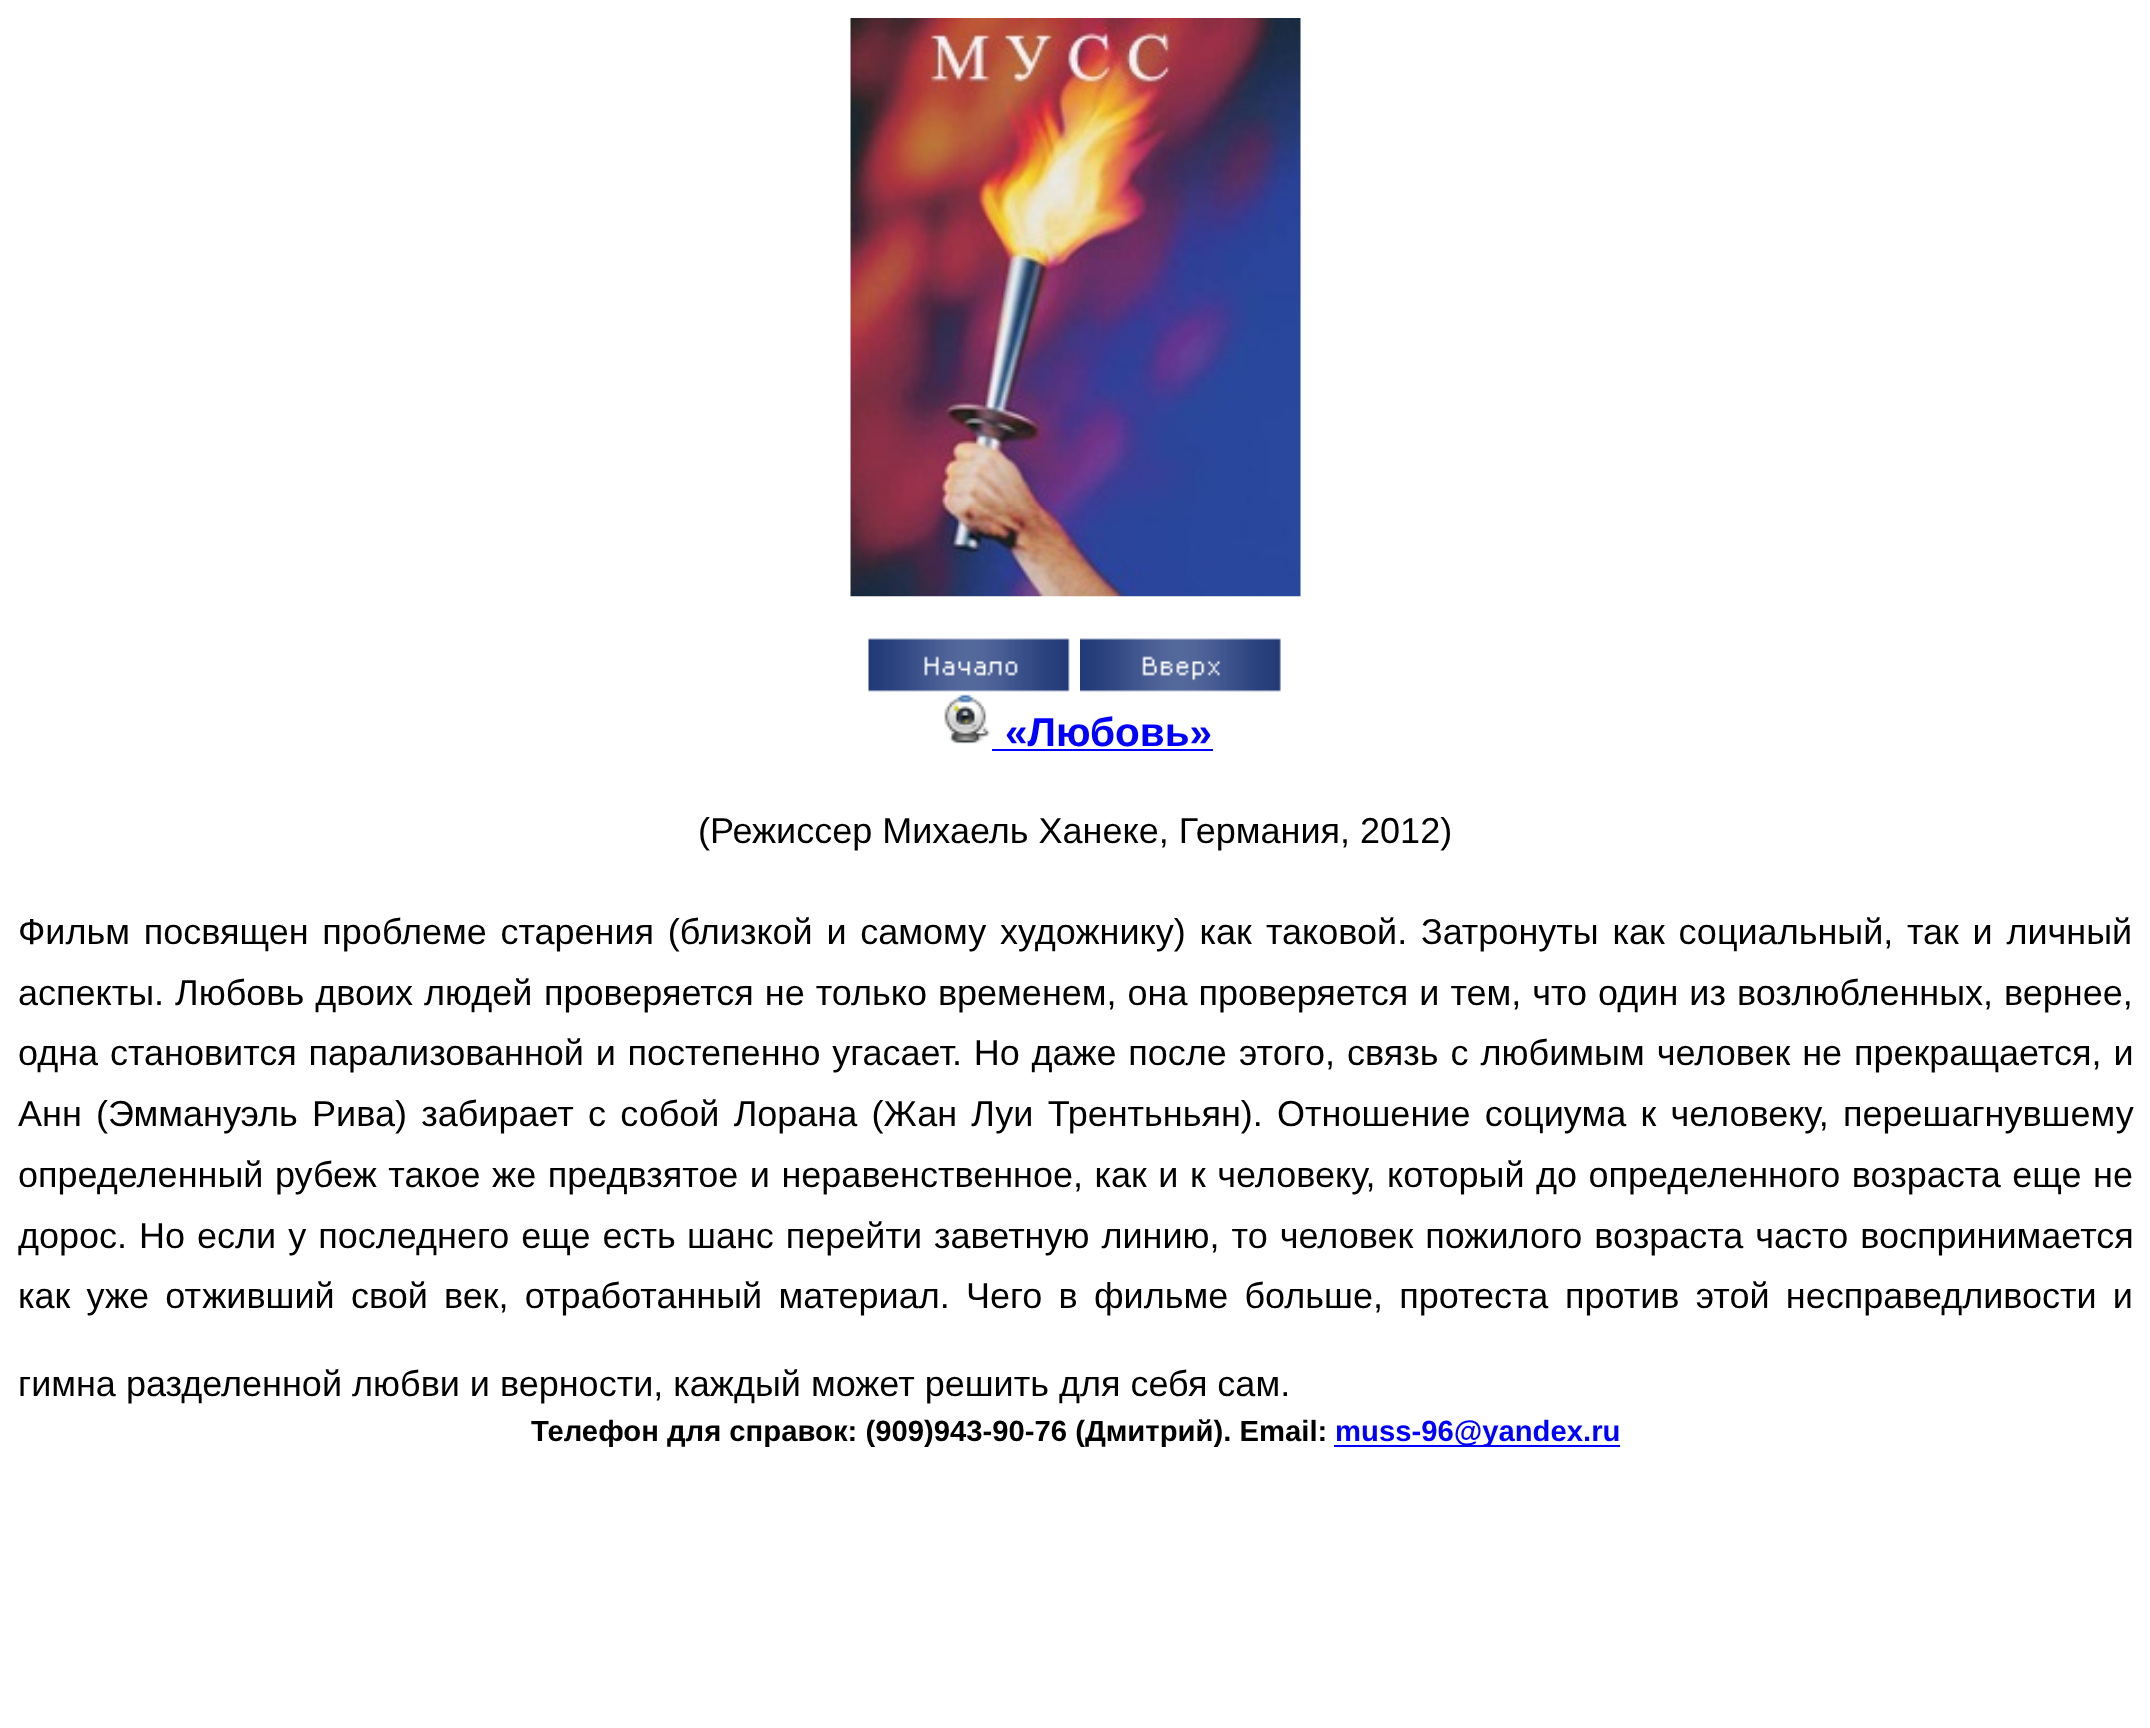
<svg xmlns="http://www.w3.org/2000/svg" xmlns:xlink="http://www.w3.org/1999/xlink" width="2150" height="1728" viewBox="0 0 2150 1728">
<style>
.cls-1{font:bold 40.5px Liberation Sans;fill:#0000ff}
.cls-2{font:36px Liberation Sans;fill:#000000}
.cls-3{font:bold 29.25px Liberation Sans;fill:#000000}
.cls-4{font:bold 29.25px Liberation Sans;fill:#0000ff}
</style>
<rect width="100%" height="100%" fill="#ffffff"/>
<image xlink:href="image0.png" x="850" y="18" width="451" height="579"/>
<image xlink:href="image1.png" x="868" y="638" width="202" height="54"/>
<image xlink:href="image2.png" x="1080" y="638" width="201" height="54"/>
<image xlink:href="image3.png" x="944" y="694" width="47" height="50"/>
<rect fill="#0000ff" x="992" y="749" width="221" height="2"/>
<rect fill="#0000ff" x="1334" y="1445" width="286" height="2"/>
<text class="cls-1" x="1005" y="746">«Любовь»</text>
<text class="cls-2" x="698" y="843">(Режиссер Михаель Ханеке, Германия, 2012)</text>
<text class="cls-2" x="18" y="944" word-spacing="3.75">Фильм посвящен проблеме старения (близкой и самому художнику) как</text>
<text class="cls-2" x="1266" y="944" word-spacing="3.75">таковой. Затронуты как социальный, так и личный</text>
<text class="cls-2" x="18" y="1005" word-spacing="1">аспекты. Любовь двоих людей</text>
<text class="cls-2" x="544" y="1005" word-spacing="1">проверяется не только временем, она проверяется и тем, что один из возлюбленных,</text>
<text class="cls-2" x="2004" y="1005">вернее,</text>
<text class="cls-2" x="18" y="1065" word-spacing="1.75">одна становится парализованной и постепенно угасает. Но даже после</text>
<text class="cls-2" x="1239" y="1065" word-spacing="2">этого, связь с любимым человек не прекращается, и</text>
<text class="cls-2" x="18" y="1126" word-spacing="4.25">Анн (Эммануэль Рива) забирает</text>
<text class="cls-2" x="588" y="1126" word-spacing="4.25">с собой Лорана (Жан Луи Трентьньян). Отношение социума к человеку, перешагнувшему</text>
<text class="cls-2" x="18" y="1187" word-spacing="1.5">определенный рубеж такое же предвзятое и неравенственное, как и к человеку,</text>
<text class="cls-2" x="1387" y="1187" word-spacing="1.5">который до определенного возраста еще не</text>
<text class="cls-2" x="18" y="1248" word-spacing="2">дорос. Но если у последнего еще есть</text>
<text class="cls-2" x="687" y="1248" word-spacing="2">шанс перейти заветную линию, то человек пожилого возраста часто воспринимается</text>
<text class="cls-2" x="18" y="1308" word-spacing="6.25">как уже отживший свой век, отработанный материал. Чего в фильме больше, протеста</text>
<text class="cls-2" x="1565" y="1308" word-spacing="6.25">против этой несправедливости и</text>
<text class="cls-2" x="18" y="1396">гимна разделенной любви и верности, каждый может решить для себя сам.</text>
<text class="cls-3" x="531" y="1441">Телефон для справок: (909)943-90-76 (Дмитрий). Email:</text>
<text class="cls-4" x="1335" y="1441">muss-96@yandex.ru</text>
</svg>
